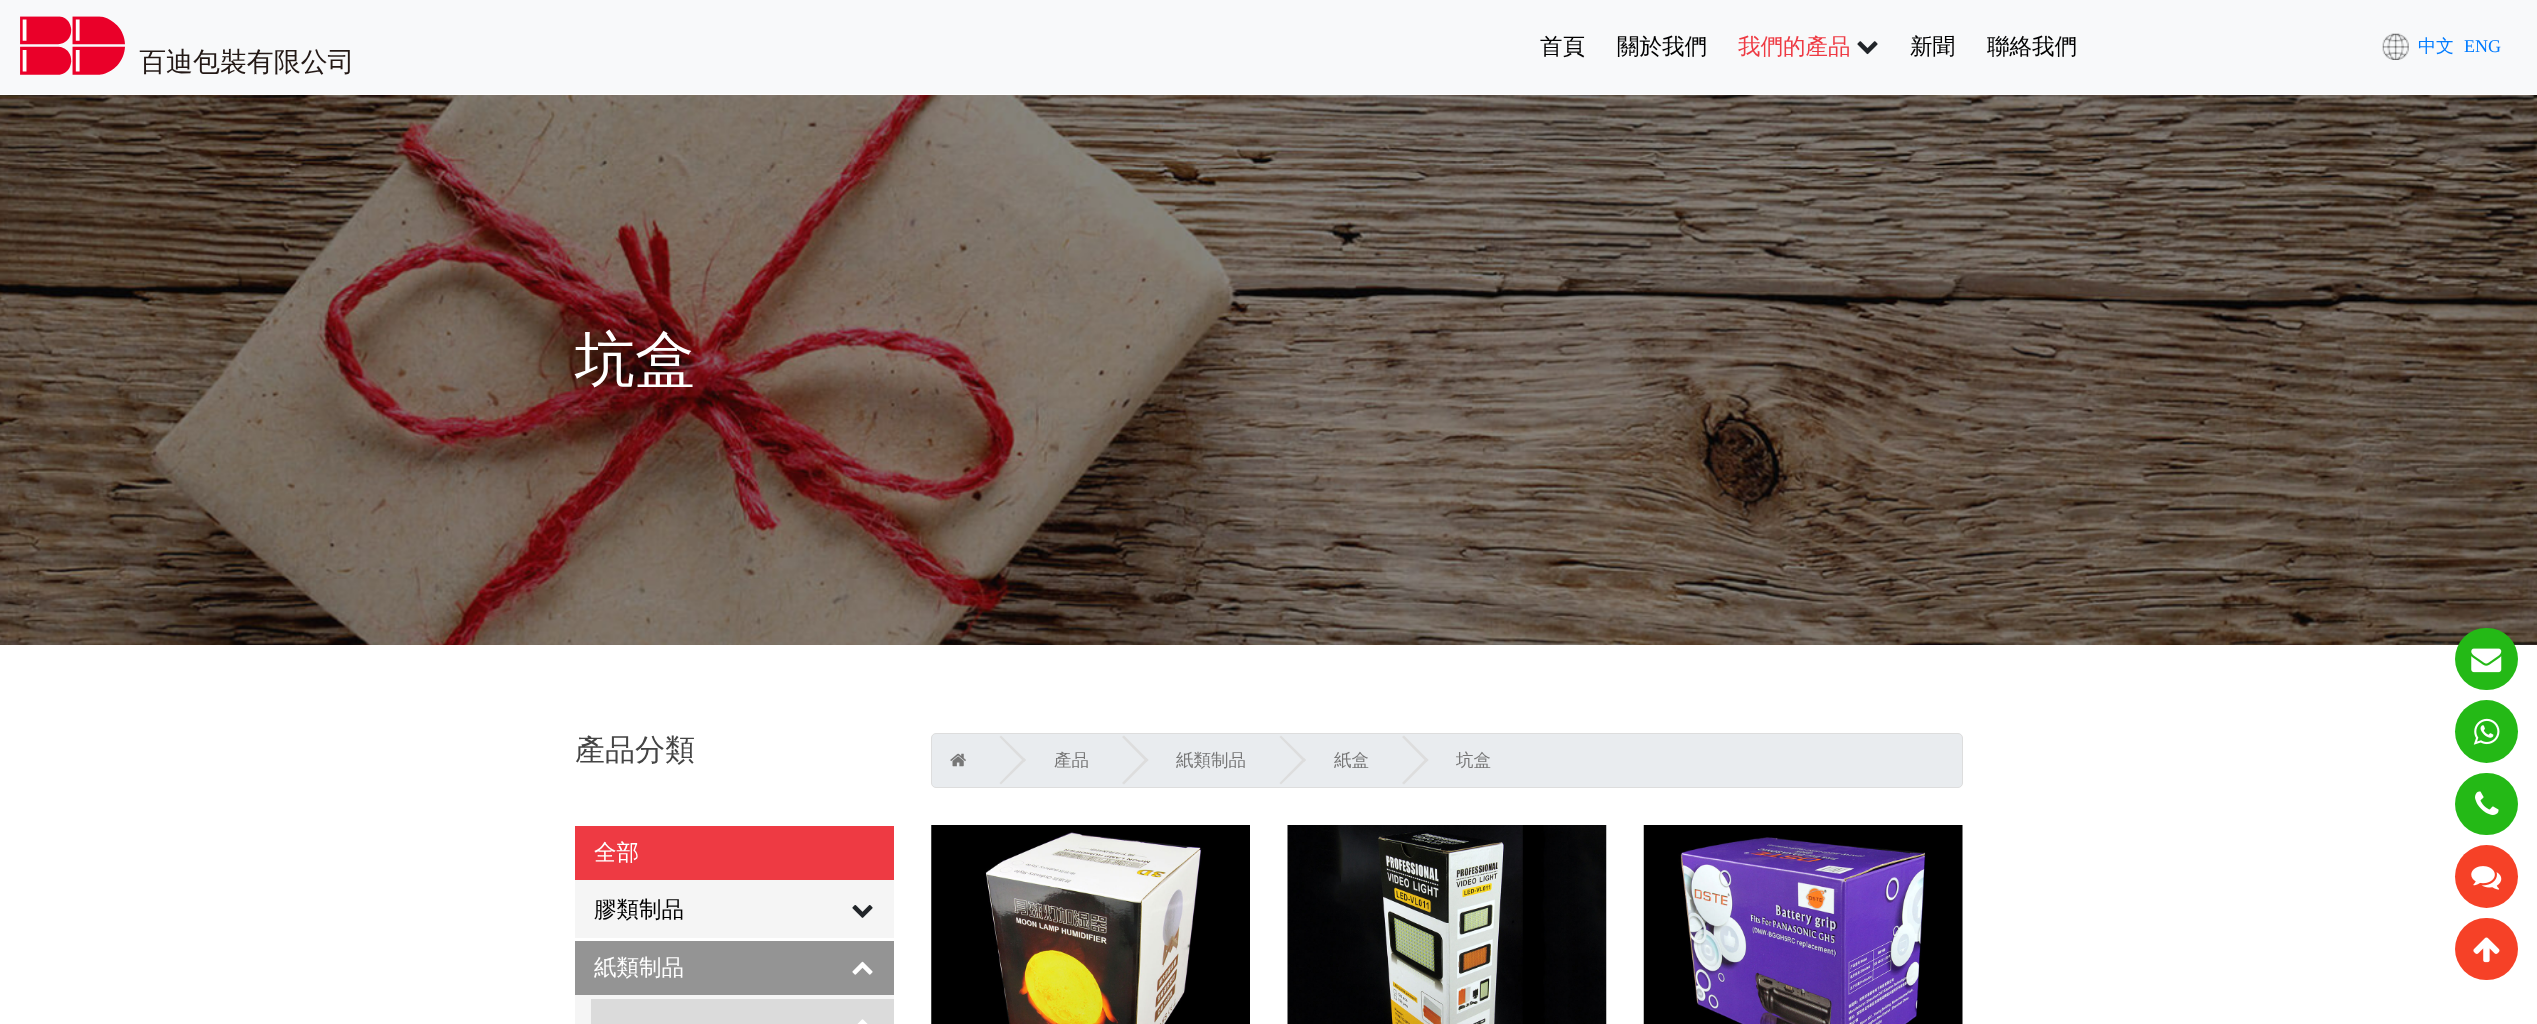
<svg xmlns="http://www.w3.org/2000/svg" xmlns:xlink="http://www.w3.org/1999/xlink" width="2537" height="1024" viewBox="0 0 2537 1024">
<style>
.cls-1{font:500 22.5px WenQuanYi Zen Hei;fill:#000000}
.cls-2{font:500 22.5px WenQuanYi Zen Hei;fill:#ee3a43}
.cls-3{font:500 18px WenQuanYi Zen Hei;fill:#007bff}
.cls-4{font:18px Liberation Serif;fill:#007bff}
.cls-5{font:500 60px WenQuanYi Zen Hei;fill:#ffffff}
.cls-6{font:500 30px WenQuanYi Zen Hei;fill:#444444}
.cls-7{font:500 22.5px WenQuanYi Zen Hei;fill:#ffffff}
.cls-8{font:500 17.5px WenQuanYi Zen Hei;fill:#777777}
</style>
<rect width="100%" height="100%" fill="#ffffff"/>
<rect fill="#f8f9fa" x="0" y="0" width="2537" height="94"/>
<image xlink:href="image0.png" x="20" y="16" width="330" height="59"/>
<image xlink:href="image1.png" x="1857" y="41" width="21" height="14"/>
<image xlink:href="image2.png" x="2382" y="33" width="27" height="27"/>
<image xlink:href="image3.png" x="0" y="95" width="2537" height="550"/>
<rect fill="#f5f5f5" x="575" y="880" width="319" height="58"/>
<rect fill="#ee3a43" x="575" y="826" width="319" height="54"/>
<image xlink:href="image4.png" x="852" y="905" width="21" height="13"/>
<rect fill="#f5f5f5" x="575" y="995" width="319" height="4"/>
<rect fill="#949494" x="575" y="941" width="319" height="54"/>
<image xlink:href="image5.png" x="852" y="961" width="21" height="14"/>
<rect fill="#f5f5f5" x="575" y="999" width="16" height="25"/>
<rect fill="#dbdbdb" x="591" y="999" width="303" height="25"/>
<image xlink:href="image6.png" x="857" y="1019" width="11" height="5"/>
<rect fill="#e9ecef" stroke="#dddddd" x="931.5" y="733.5" width="1031" height="54" rx="4.5"/>
<image xlink:href="image7.png" x="950" y="753" width="16" height="14"/>
<path fill="#dddddd" d="M1001 735.5L1026 760L1024 762L999.5 737Z"/>
<path fill="#dddddd" d="M1024 758L1026 760L1001 784.5L999.5 783Z"/>
<path fill="#dddddd" d="M1124 735.5L1148.5 760L1146.5 762L1122 737Z"/>
<path fill="#dddddd" d="M1146.5 758L1148.5 760L1124 784.5L1122 783Z"/>
<path fill="#dddddd" d="M1281 735.5L1306 760L1304 762L1279.5 737Z"/>
<path fill="#dddddd" d="M1304 758L1306 760L1281 784.5L1279.5 783Z"/>
<path fill="#dddddd" d="M1404 735.5L1428.5 760L1426.5 762L1402 737Z"/>
<path fill="#dddddd" d="M1426.5 758L1428.5 760L1404 784.5L1402 783Z"/>
<image xlink:href="image8.png" x="931" y="825" width="319" height="199"/>
<image xlink:href="image9.png" x="1287" y="825" width="320" height="199"/>
<image xlink:href="image10.png" x="1643" y="825" width="320" height="199"/>
<rect fill="#24b916" x="2455" y="628" width="63" height="62" rx="31"/>
<image xlink:href="image11.png" x="2471" y="648" width="31" height="25"/>
<circle fill="#24b916" cx="2486.5" cy="731.5" r="31.5"/>
<image xlink:href="image12.png" x="2473" y="718" width="27" height="27"/>
<rect fill="#24b916" x="2455" y="773" width="63" height="62" rx="31"/>
<image xlink:href="image13.png" x="2475" y="791" width="24" height="24"/>
<circle fill="#f64127" cx="2486.5" cy="876.5" r="31.5"/>
<image xlink:href="image14.png" x="2471" y="866" width="31" height="24"/>
<rect fill="#f64127" x="2455" y="918" width="63" height="62" rx="31"/>
<image xlink:href="image15.png" x="2473" y="937" width="27" height="26"/>
<text class="cls-1" x="1540" y="54">首頁</text>
<text class="cls-1" x="1617" y="54">關於我們</text>
<text class="cls-2" x="1738" y="54">我們的產品</text>
<text class="cls-1" x="1910" y="54">新聞</text>
<text class="cls-1" x="1987" y="54">聯絡我們</text>
<text class="cls-3" x="2418" y="52">中文</text>
<text class="cls-4" x="2464" y="52">ENG</text>
<text class="cls-5" x="575" y="380">坑盒</text>
<text class="cls-6" x="575" y="760">產品分類</text>
<text class="cls-7" x="594" y="860">全部</text>
<text class="cls-1" x="594" y="917">膠類制品</text>
<text class="cls-7" x="594" y="975">紙類制品</text>
<text class="cls-8" x="1054" y="766">產品</text>
<text class="cls-8" x="1176" y="766">紙類制品</text>
<text class="cls-8" x="1334" y="766">紙盒</text>
<text class="cls-8" x="1456" y="766">坑盒</text>
</svg>
